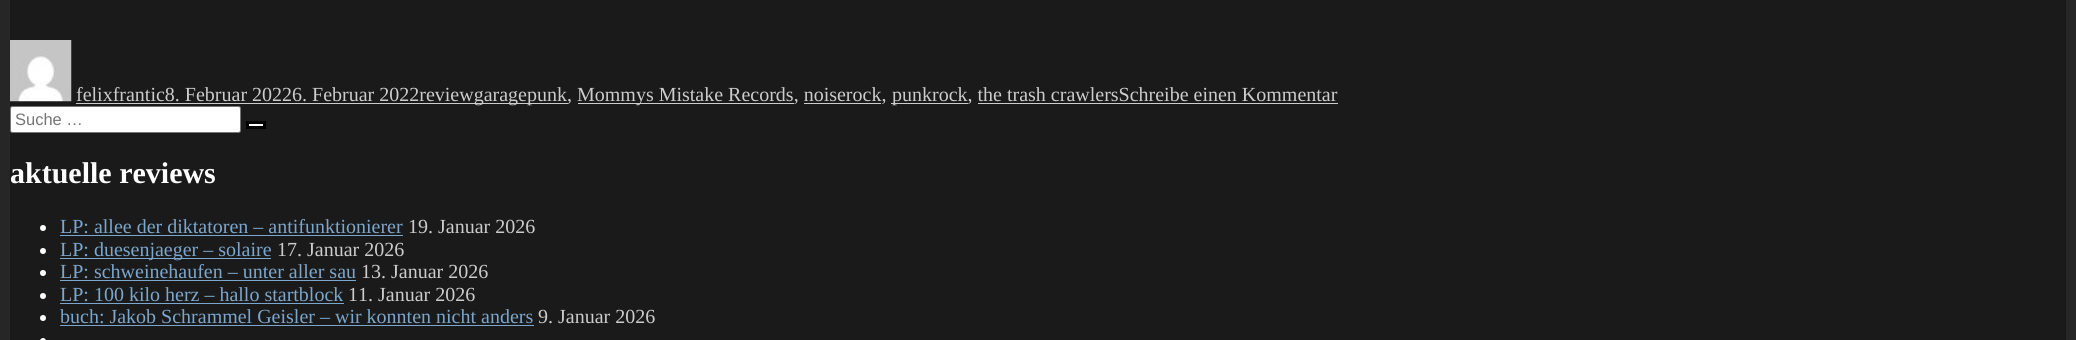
import math
import cairo


def use_color(cr, r, g, b):
  cr.set_source_rgb(r / 255, g / 255, b / 255)

def text(cr, x, y, s, family, size, color, bold=False, italic=False):
  cr.select_font_face(family, cairo.FONT_SLANT_ITALIC if italic else cairo.FONT_SLANT_NORMAL, cairo.FONT_WEIGHT_BOLD if bold else cairo.FONT_WEIGHT_NORMAL)
  cr.set_font_size(size)
  use_color(cr, *color)
  cr.move_to(x, y)
  cr.show_text(s)

def box(cr, x, y, w, h, *color):
  use_color(cr, *color)
  cr.rectangle(x, y, w, h)
  cr.fill()

def round_rect(cr, x, y, w, h, r):
  cr.new_sub_path()
  for i, (u, v) in enumerate([(x + w - r, y + h - r), (x + r, y + h - r), (x + r, y + r), (x + w - r, y + r)]):
    cr.arc(u, v, r, i * math.pi / 2, (i + 1) * math.pi / 2)
  cr.close_path()

def picture(cr, path, x, y, w, h):
  cr.save()
  cr.set_source_surface(cairo.ImageSurface.create_from_png(path), x, y)
  cr.rectangle(x, y, w, h)
  cr.fill()
  cr.restore()

def draw(cr):
  use_color(cr, 38, 38, 38)
  cr.paint()
  box(cr, 10, 0, 2056, 340, 26, 26, 26)
  picture(cr, "img_01.png", 10, 40, 62, 62)
  box(cr, 76, 103, 492, 1, 204, 204, 204)
  box(cr, 578, 103, 216, 1, 204, 204, 204)
  box(cr, 804, 103, 77, 1, 204, 204, 204)
  box(cr, 891, 103, 77, 1, 204, 204, 204)
  box(cr, 978, 103, 360, 1, 204, 204, 204)
  use_color(cr, 255, 255, 255)
  round_rect(cr, 10.5, 106.5, 230, 26, 2)
  cr.fill_preserve()
  use_color(cr, 118, 118, 118)
  cr.set_line_width(1)
  cr.stroke()
  use_color(cr, 255, 255, 255)
  cr.rectangle(247.5, 122.5, 17, 5)
  cr.fill_preserve()
  use_color(cr, 0, 0, 0)
  cr.set_line_width(3)
  cr.stroke()
  use_color(cr, 255, 255, 255)
  cr.arc(43, 228, 3, 0, 2 * math.pi)
  cr.fill()
  box(cr, 60, 235, 343, 1, 124, 166, 204)
  use_color(cr, 255, 255, 255)
  cr.arc(43, 251, 3, 0, 2 * math.pi)
  cr.fill()
  box(cr, 60, 258, 211, 1, 124, 166, 204)
  use_color(cr, 255, 255, 255)
  cr.arc(43, 273, 3, 0, 2 * math.pi)
  cr.fill()
  box(cr, 60, 280, 296, 1, 124, 166, 204)
  use_color(cr, 255, 255, 255)
  cr.arc(43, 296, 3, 0, 2 * math.pi)
  cr.fill()
  box(cr, 60, 303, 284, 1, 124, 166, 204)
  use_color(cr, 255, 255, 255)
  cr.arc(43, 318, 3, 0, 2 * math.pi)
  cr.fill()
  box(cr, 60, 325, 474, 1, 124, 166, 204)
  use_color(cr, 255, 255, 255)
  round_rect(cr, 40, 338, 6, 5, 3)
  cr.fill()
  text(cr, 76, 101, "felixfrantic8. Februar 20226. Februar 2022reviewgaragepunk,", "Liberation Serif", 20, (204, 204, 204))
  text(cr, 577, 101, "Mommys Mistake Records, noiserock,", "Liberation Serif", 20, (204, 204, 204))
  text(cr, 892, 101, "punkrock, the trash crawlersSchreibe einen Kommentar", "Liberation Serif", 20, (204, 204, 204))
  text(cr, 15, 125, "Suche …", "Liberation Sans", 16.5, (117, 117, 117))
  text(cr, 10, 183, "aktuelle reviews", "Liberation Serif", 30, (255, 255, 255), bold=True)
  text(cr, 60, 233, "LP: allee der diktatoren – antifunktionierer", "Liberation Serif", 20, (124, 166, 204))
  text(cr, 408, 233, "19. Januar 2026", "Liberation Serif", 20, (204, 204, 204))
  text(cr, 60, 256, "LP: duesenjaeger – solaire", "Liberation Serif", 20, (124, 166, 204))
  text(cr, 277, 256, "17. Januar 2026", "Liberation Serif", 20, (204, 204, 204))
  text(cr, 60, 278, "LP: schweinehaufen – unter aller sau", "Liberation Serif", 20, (124, 166, 204))
  text(cr, 361, 278, "13. Januar 2026", "Liberation Serif", 20, (204, 204, 204))
  text(cr, 60, 301, "LP: 100 kilo herz – hallo startblock", "Liberation Serif", 20, (124, 166, 204))
  text(cr, 348, 301, "11. Januar 2026", "Liberation Serif", 20, (204, 204, 204))
  text(cr, 60, 323, "buch: Jakob Schrammel Geisler – wir konnten nicht anders", "Liberation Serif", 20, (124, 166, 204))
  text(cr, 538, 323, "9. Januar 2026", "Liberation Serif", 20, (204, 204, 204))


surface = cairo.ImageSurface(cairo.FORMAT_RGB24, 2076, 340)
cr = cairo.Context(surface)
options = cairo.FontOptions()
options.set_hint_metrics(cairo.HINT_METRICS_OFF)
options.set_hint_style(cairo.HINT_STYLE_NONE)
cr.set_font_options(options)
cr.set_miter_limit(4)
draw(cr)
surface.write_to_png("out.png")
